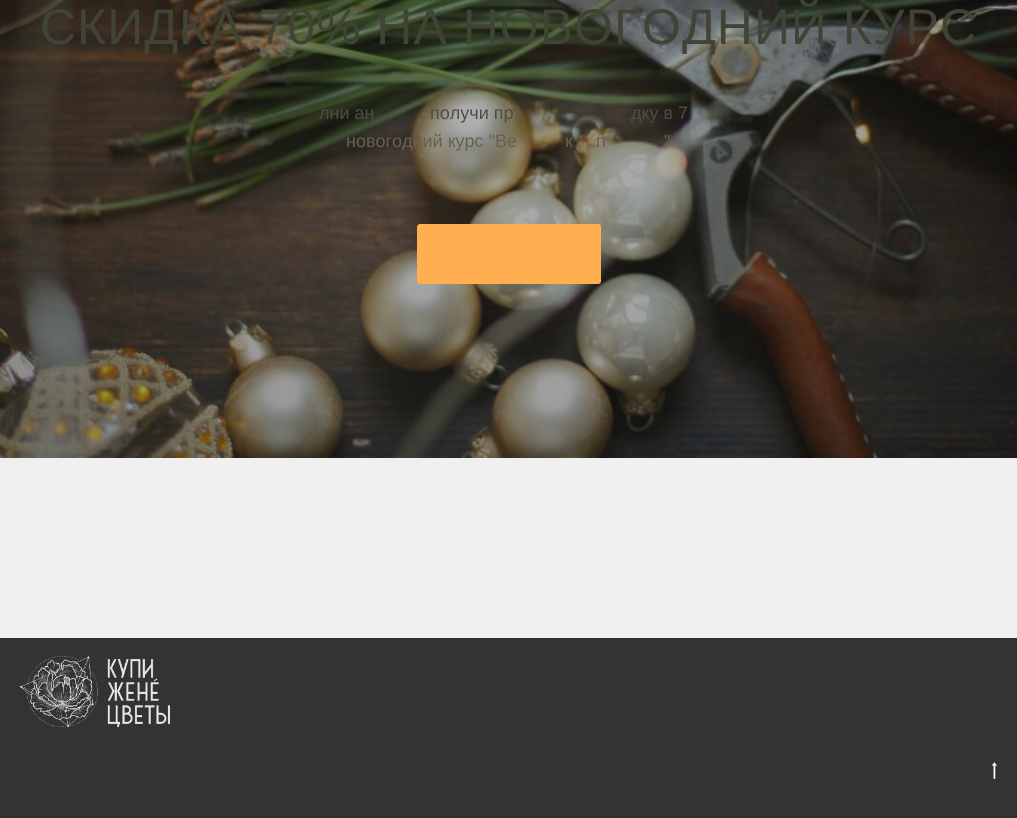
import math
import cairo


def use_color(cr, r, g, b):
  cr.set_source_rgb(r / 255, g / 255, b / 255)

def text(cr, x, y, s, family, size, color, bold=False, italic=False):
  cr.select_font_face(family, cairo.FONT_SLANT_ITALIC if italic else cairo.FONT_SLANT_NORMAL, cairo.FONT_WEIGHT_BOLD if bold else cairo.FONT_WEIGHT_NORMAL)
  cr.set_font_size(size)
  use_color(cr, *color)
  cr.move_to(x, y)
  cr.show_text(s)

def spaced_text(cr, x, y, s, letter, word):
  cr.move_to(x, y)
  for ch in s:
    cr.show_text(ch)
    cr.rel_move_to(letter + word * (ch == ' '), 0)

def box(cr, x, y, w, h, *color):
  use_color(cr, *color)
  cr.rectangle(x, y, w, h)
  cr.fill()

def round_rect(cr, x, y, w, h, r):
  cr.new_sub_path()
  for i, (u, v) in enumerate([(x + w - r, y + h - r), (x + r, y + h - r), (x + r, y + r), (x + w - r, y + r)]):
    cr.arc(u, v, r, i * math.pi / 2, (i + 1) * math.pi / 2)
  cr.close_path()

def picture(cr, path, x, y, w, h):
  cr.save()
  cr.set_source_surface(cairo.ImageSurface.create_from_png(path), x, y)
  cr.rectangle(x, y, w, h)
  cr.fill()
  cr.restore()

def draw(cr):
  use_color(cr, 240, 240, 240)
  cr.paint()
  picture(cr, "img_01.png", 0, 0, 1017, 458)
  use_color(cr, 255, 175, 80)
  round_rect(cr, 417, 224, 184, 60, 3)
  cr.fill()
  box(cr, 0, 638, 1017, 180, 51, 51, 51)
  picture(cr, "img_02.png", 20, 656, 150, 71)
  picture(cr, "img_03.png", 992, 762, 5, 17)
  cr.select_font_face("Liberation Sans")
  cr.set_font_size(50)
  use_color(cr, 64, 67, 53)
  spaced_text(cr, 40, 44, "СКИДКА 70% НА НОВОГОДНИЙ КУРС", 1, 0)
  text(cr, 319, 119, "лни ан", "Liberation Sans", 18, (78, 77, 64))
  text(cr, 430, 119, "получи пр", "Liberation Sans", 18, (78, 77, 64))
  text(cr, 631, 119, "дку в 7", "Liberation Sans", 18, (78, 77, 64))
  text(cr, 346, 147, "новогодний курс \"Ве", "Liberation Sans", 18, (103, 96, 79))
  text(cr, 664, 147, "\"", "Liberation Sans", 18, (103, 96, 79))
  text(cr, 565, 147, "к", "Liberation Sans", 18, (103, 96, 79))
  text(cr, 596, 147, "п", "Liberation Sans", 18, (103, 96, 79))


surface = cairo.ImageSurface(cairo.FORMAT_RGB24, 1017, 818)
cr = cairo.Context(surface)
options = cairo.FontOptions()
options.set_hint_metrics(cairo.HINT_METRICS_OFF)
options.set_hint_style(cairo.HINT_STYLE_NONE)
cr.set_font_options(options)
cr.set_miter_limit(4)
draw(cr)
surface.write_to_png("out.png")
